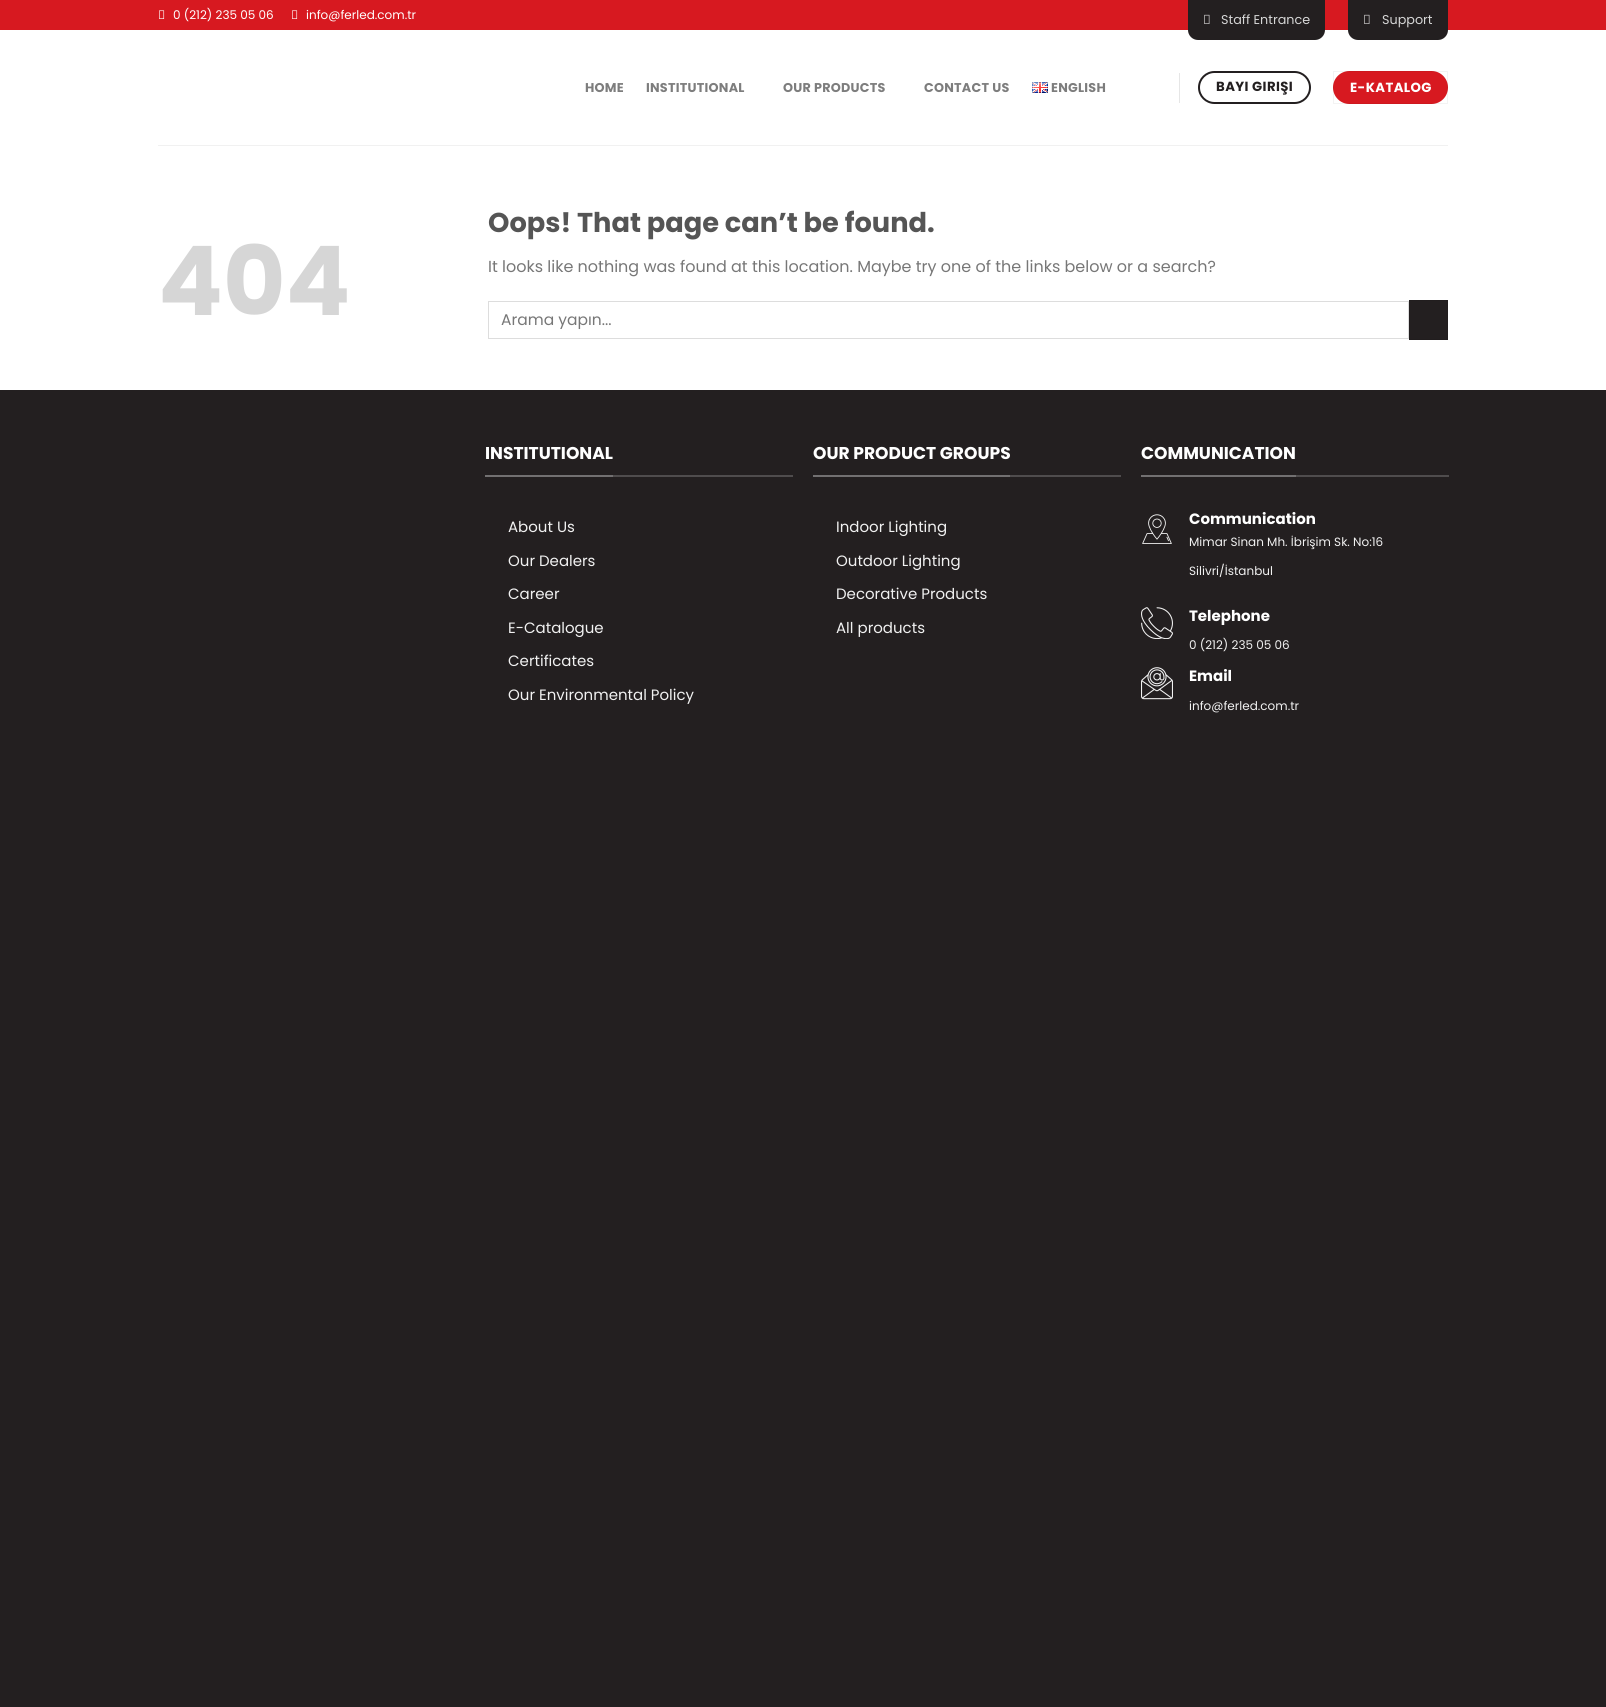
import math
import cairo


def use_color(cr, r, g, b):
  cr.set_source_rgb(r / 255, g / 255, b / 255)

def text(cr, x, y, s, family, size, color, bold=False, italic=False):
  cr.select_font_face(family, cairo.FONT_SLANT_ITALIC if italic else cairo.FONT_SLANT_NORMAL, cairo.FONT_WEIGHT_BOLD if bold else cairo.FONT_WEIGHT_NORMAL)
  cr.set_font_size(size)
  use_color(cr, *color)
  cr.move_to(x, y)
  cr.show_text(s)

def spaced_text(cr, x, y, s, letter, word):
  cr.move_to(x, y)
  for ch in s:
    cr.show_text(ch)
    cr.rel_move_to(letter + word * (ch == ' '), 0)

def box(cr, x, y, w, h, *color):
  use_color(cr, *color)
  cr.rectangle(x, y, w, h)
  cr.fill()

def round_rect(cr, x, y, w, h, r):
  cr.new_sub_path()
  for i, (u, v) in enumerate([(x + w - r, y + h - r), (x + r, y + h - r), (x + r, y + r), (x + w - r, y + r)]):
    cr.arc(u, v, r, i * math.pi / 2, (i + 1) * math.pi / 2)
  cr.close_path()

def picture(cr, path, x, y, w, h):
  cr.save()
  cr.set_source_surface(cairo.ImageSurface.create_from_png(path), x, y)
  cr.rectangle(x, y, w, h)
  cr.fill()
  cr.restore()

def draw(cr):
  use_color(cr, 255, 255, 255)
  cr.paint()
  box(cr, 0, 0, 1606, 30, 215, 25, 32)
  picture(cr, "img_01.png", 159, 10, 6, 9)
  picture(cr, "img_01.png", 292, 10, 6, 9)
  use_color(cr, 35, 31, 32)
  cr.new_path()
  cr.move_to(1188, 0)
  cr.line_to(1325, 0)
  cr.line_to(1325, 30)
  cr.curve_to(1325, 35.5, 1320.5, 40, 1315, 40)
  cr.line_to(1198, 40)
  cr.curve_to(1192.5, 40, 1188, 35.5, 1188, 30)
  cr.close_path()
  cr.fill()
  picture(cr, "img_02.png", 1204, 14, 6, 10)
  cr.new_path()
  cr.move_to(1348, 0)
  cr.line_to(1448, 0)
  cr.line_to(1448, 30)
  cr.curve_to(1448, 35.5, 1443.5, 40, 1438, 40)
  cr.line_to(1358, 40)
  cr.curve_to(1352.5, 40, 1348, 35.5, 1348, 30)
  cr.close_path()
  cr.fill()
  picture(cr, "img_02.png", 1364, 14, 6, 10)
  picture(cr, "img_03.png", 1032, 82, 16, 11)
  box(cr, 1179, 73, 1, 30, 230, 230, 230)
  round_rect(cr, 1199, 72, 111, 31, 15.5)
  use_color(cr, 35, 31, 32)
  cr.stroke()
  use_color(cr, 215, 25, 32)
  round_rect(cr, 1333, 71, 115, 33, 16.5)
  cr.fill()
  cr.rectangle(1333.5, 71.5, 114, 32)
  cr.set_source_rgba(0, 0, 0, 0.05)
  cr.set_line_width(1)
  cr.stroke()
  box(cr, 158, 145, 1290, 1, 241, 241, 241)
  cr.rectangle(488.5, 301.5, 920, 37)
  use_color(cr, 221, 221, 221)
  cr.stroke()
  use_color(cr, 35, 31, 32)
  cr.rectangle(1409.5, 300.5, 38, 39)
  cr.fill_preserve()
  use_color(cr, 33, 29, 30)
  cr.stroke()
  box(cr, 0, 390, 1606, 1317, 35, 31, 32)
  box(cr, 613, 475, 180, 2, 79, 76, 77)
  box(cr, 485, 475, 128, 2, 114, 112, 113)
  box(cr, 1010, 475, 111, 2, 79, 76, 77)
  box(cr, 813, 475, 197, 2, 114, 112, 113)
  box(cr, 1296, 475, 153, 2, 79, 76, 77)
  box(cr, 1141, 475, 155, 2, 114, 112, 113)
  picture(cr, "img_04.png", 1142, 514, 30, 30)
  picture(cr, "img_05.png", 1141, 607, 32, 32)
  picture(cr, "img_06.png", 1141, 667, 32, 33)
  text(cr, 173, 19, "0 (212) 235 05 06", "Poppins", 12, (255, 255, 255))
  text(cr, 306, 19, "info@ferled.com.tr", "Poppins", 12, (255, 255, 255))
  text(cr, 1221, 24, "Staff Entrance", "Poppins", 12.75, (214, 214, 214))
  text(cr, 1382, 24, "Support", "Poppins", 12.75, (214, 214, 214))
  cr.select_font_face("Poppins", cairo.FONT_SLANT_NORMAL, cairo.FONT_WEIGHT_BOLD)
  use_color(cr, 125, 125, 125)
  spaced_text(cr, 585, 92, "HOME", 0.25, 0)
  spaced_text(cr, 646, 92, "INSTITUTIONAL", 0.25, 0)
  spaced_text(cr, 783, 92, "OUR PRODUCTS", 0.25, 0)
  spaced_text(cr, 924, 92, "CONTACT US", 0.25, 0)
  spaced_text(cr, 1051, 92, "ENGLISH", 0.25, 0)
  cr.set_font_size(13.25)
  use_color(cr, 35, 31, 32)
  spaced_text(cr, 1216, 91, "BAYI GIRIŞI", 0.4, 0)
  use_color(cr, 255, 255, 255)
  spaced_text(cr, 1350, 92, "E-KATALOG", 0.4, 0)
  text(cr, 158, 315, "404", "Poppins", 96, (214, 214, 214), bold=True)
  text(cr, 488, 232, "Oops! That page can’t be found.", "Poppins", 27.25, (85, 85, 85), bold=True)
  text(cr, 488, 272, "It looks like nothing was found at this location. Maybe try one of the links below or a search?", "Poppins", 16, (119, 119, 119))
  text(cr, 501, 325, "Arama yapın...", "Poppins", 15.5, (119, 119, 119))
  text(cr, 485, 459, "INSTITUTIONAL", "Poppins", 17.1, (255, 255, 255), bold=True)
  text(cr, 508, 532, "About Us", "Poppins", 15, (241, 241, 241))
  text(cr, 508, 566, "Our Dealers", "Poppins", 15, (241, 241, 241))
  text(cr, 508, 599, "Career", "Poppins", 15, (241, 241, 241))
  text(cr, 508, 633, "E-Catalogue", "Poppins", 15, (241, 241, 241))
  text(cr, 508, 666, "Certificates", "Poppins", 15, (241, 241, 241))
  text(cr, 508, 700, "Our Environmental Policy", "Poppins", 15, (241, 241, 241))
  text(cr, 813, 459, "OUR PRODUCT GROUPS", "Poppins", 17.1, (255, 255, 255), bold=True)
  text(cr, 836, 532, "Indoor Lighting", "Poppins", 15, (241, 241, 241))
  text(cr, 836, 566, "Outdoor Lighting", "Poppins", 15, (241, 241, 241))
  text(cr, 836, 599, "Decorative Products", "Poppins", 15, (241, 241, 241))
  text(cr, 836, 633, "All products", "Poppins", 15, (241, 241, 241))
  text(cr, 1141, 459, "COMMUNICATION", "Poppins", 17.1, (255, 255, 255), bold=True)
  text(cr, 1189, 524, "Communication", "Poppins", 15, (255, 255, 255), bold=True)
  text(cr, 1189, 546, "Mimar Sinan Mh. İbrişim Sk. No:16", "Poppins", 12, (241, 241, 241))
  text(cr, 1189, 575, "Silivri/İstanbul", "Poppins", 12, (241, 241, 241))
  text(cr, 1189, 621, "Telephone", "Poppins", 15, (255, 255, 255), bold=True)
  text(cr, 1189, 649, "0 (212) 235 05 06", "Poppins", 12, (241, 241, 241))
  text(cr, 1189, 681, "Email", "Poppins", 15, (255, 255, 255), bold=True)
  text(cr, 1189, 710, "info@ferled.com.tr", "Poppins", 12, (241, 241, 241))


surface = cairo.ImageSurface(cairo.FORMAT_RGB24, 1606, 1707)
cr = cairo.Context(surface)
options = cairo.FontOptions()
options.set_hint_metrics(cairo.HINT_METRICS_OFF)
options.set_hint_style(cairo.HINT_STYLE_NONE)
cr.set_font_options(options)
cr.set_miter_limit(4)
draw(cr)
surface.write_to_png("out.png")
